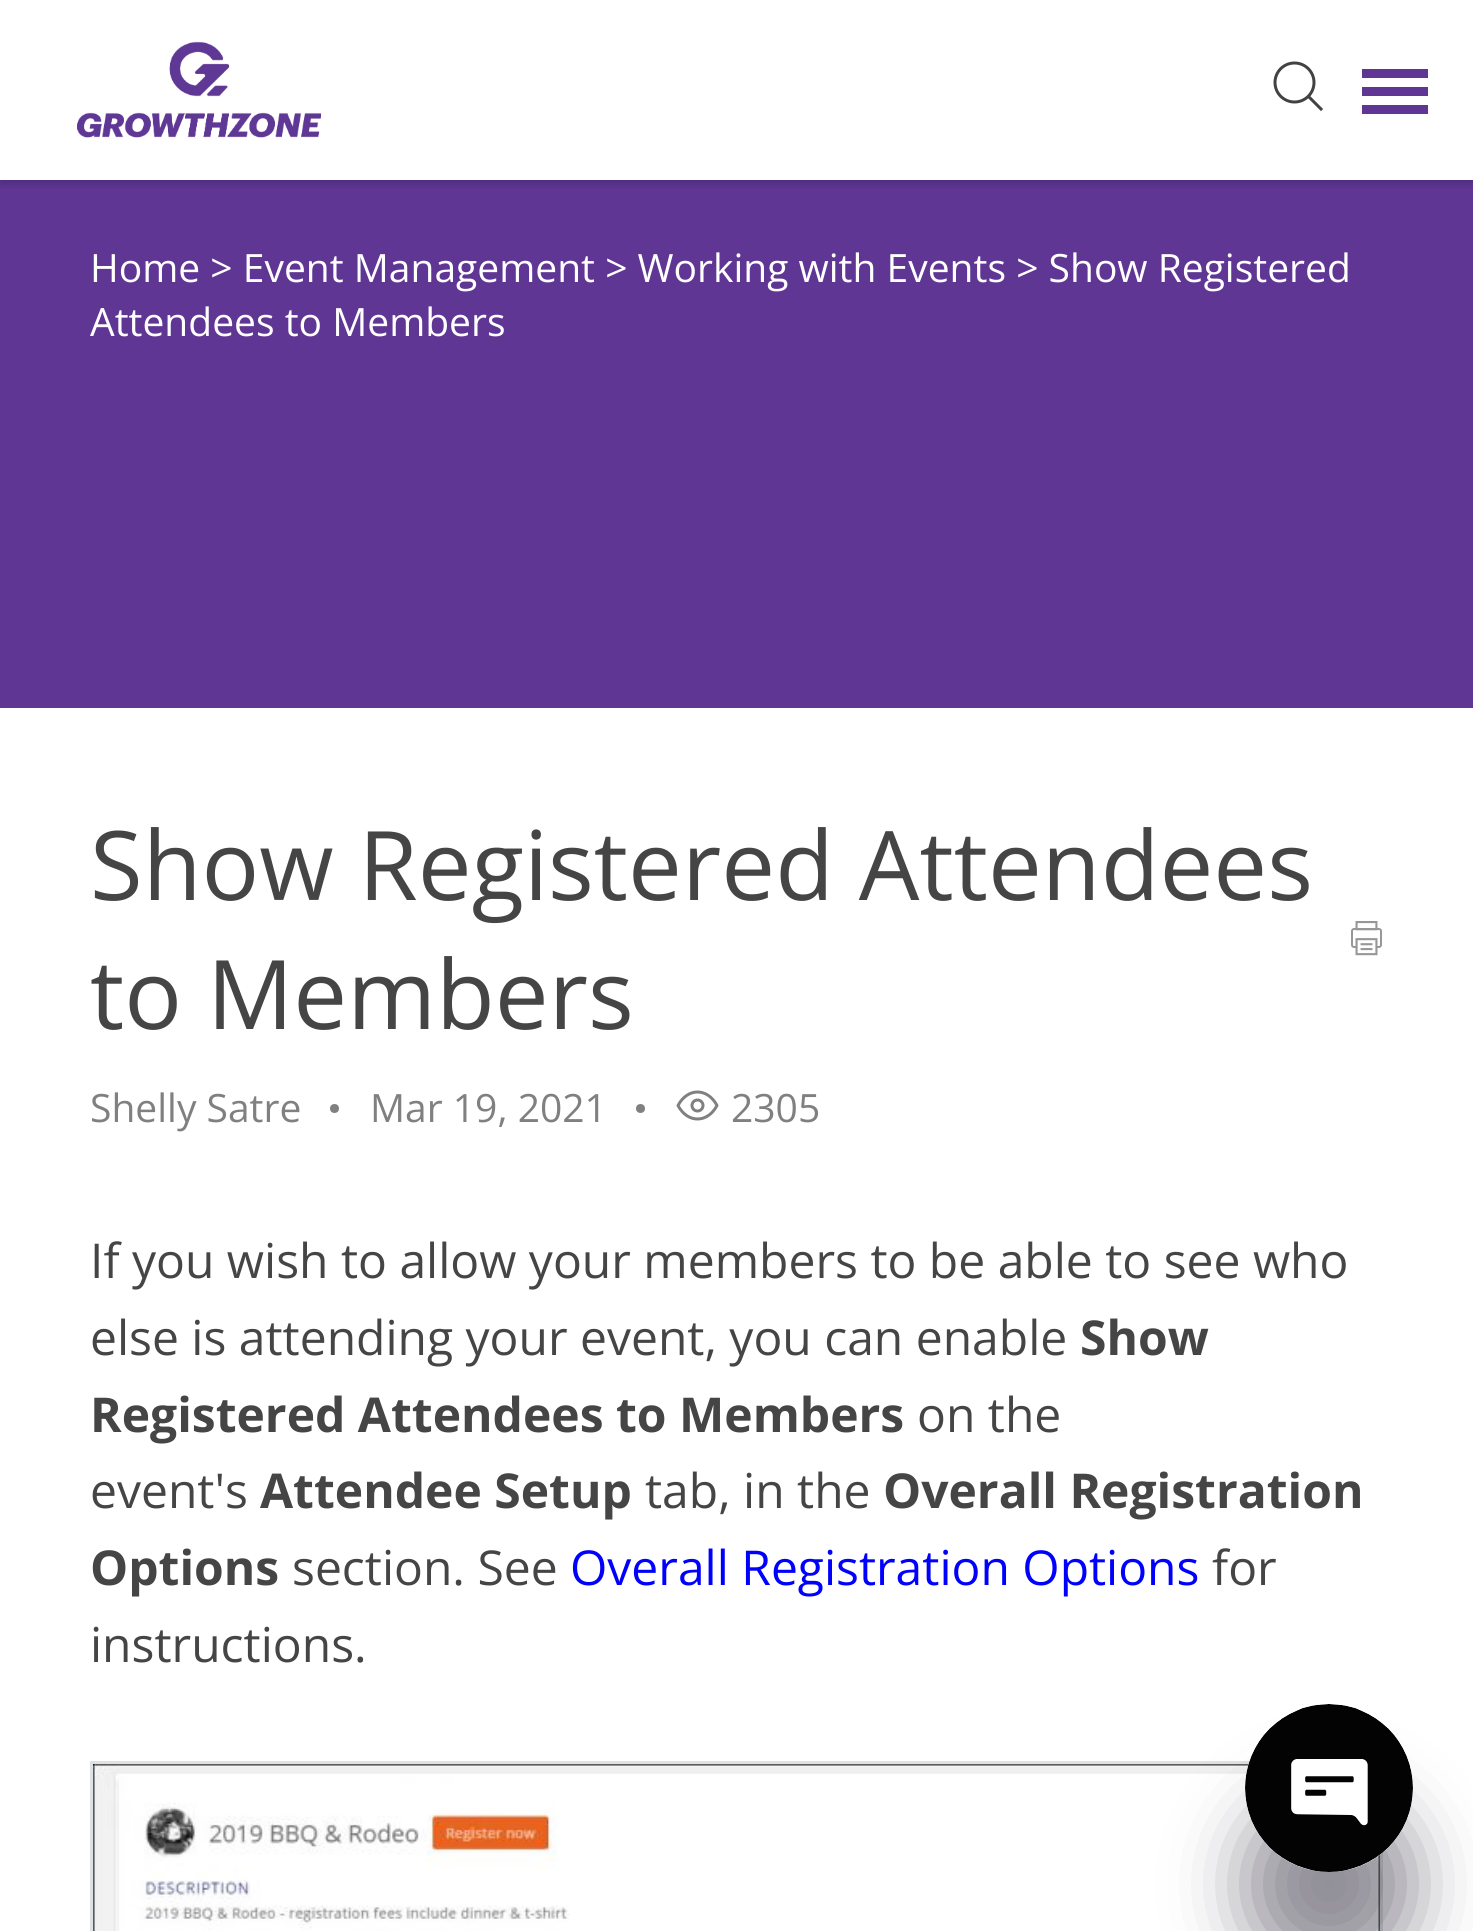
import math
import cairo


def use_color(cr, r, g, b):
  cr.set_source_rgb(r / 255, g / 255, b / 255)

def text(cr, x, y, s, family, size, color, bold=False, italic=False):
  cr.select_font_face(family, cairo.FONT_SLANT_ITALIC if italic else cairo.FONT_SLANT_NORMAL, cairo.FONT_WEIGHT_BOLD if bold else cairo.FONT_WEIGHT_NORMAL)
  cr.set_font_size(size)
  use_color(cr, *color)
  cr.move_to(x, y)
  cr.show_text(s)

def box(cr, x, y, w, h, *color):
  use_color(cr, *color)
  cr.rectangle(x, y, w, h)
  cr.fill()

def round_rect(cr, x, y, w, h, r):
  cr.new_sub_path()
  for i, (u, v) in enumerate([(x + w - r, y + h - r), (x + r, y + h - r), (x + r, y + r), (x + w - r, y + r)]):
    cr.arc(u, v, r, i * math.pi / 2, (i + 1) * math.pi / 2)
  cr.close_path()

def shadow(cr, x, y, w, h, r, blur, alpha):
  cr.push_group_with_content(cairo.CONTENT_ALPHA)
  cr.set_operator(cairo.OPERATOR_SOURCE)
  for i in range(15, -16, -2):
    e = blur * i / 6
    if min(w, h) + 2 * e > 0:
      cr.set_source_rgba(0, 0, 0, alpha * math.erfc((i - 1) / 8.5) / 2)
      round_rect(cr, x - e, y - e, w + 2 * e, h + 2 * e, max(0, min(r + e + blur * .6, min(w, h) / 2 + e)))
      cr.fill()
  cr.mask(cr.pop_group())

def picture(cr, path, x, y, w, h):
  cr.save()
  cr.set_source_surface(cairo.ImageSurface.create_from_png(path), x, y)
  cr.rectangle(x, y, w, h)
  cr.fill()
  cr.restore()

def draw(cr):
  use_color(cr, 255, 255, 255)
  cr.paint()
  box(cr, 0, 180, 1473, 528, 95, 54, 148)
  cr.save()
  cr.rectangle(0, 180, 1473, 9)
  cr.clip()
  use_color(cr, 0, 0, 0)
  shadow(cr, 0, 3, 1473, 180, 0, 4.5, 0.2)
  cr.restore()
  picture(cr, "img_01.png", 77, 41, 244, 97)
  cr.arc(1294.5, 82.5, 19.5, 0, 2 * math.pi)
  use_color(cr, 66, 66, 66)
  cr.set_line_width(3)
  cr.stroke()
  cr.new_path()
  cr.move_to(1310, 98)
  cr.line_to(1321, 109)
  cr.set_line_cap(cairo.LINE_CAP_SQUARE)
  cr.stroke()
  box(cr, 1362, 69, 66, 9, 95, 54, 148)
  box(cr, 1362, 87, 66, 9, 95, 54, 148)
  box(cr, 1362, 105, 66, 9, 95, 54, 148)
  picture(cr, "img_02.png", 1351, 921, 31, 35)
  use_color(cr, 128, 128, 128)
  cr.arc(334.5, 1108.5, 4.5, 0, 2 * math.pi)
  cr.fill()
  cr.arc(640.5, 1108.5, 4.5, 0, 2 * math.pi)
  cr.fill()
  cr.new_path()
  cr.move_to(678, 1105.5)
  cr.curve_to(687.5, 1087.5, 707.5, 1087.5, 717, 1105.5)
  cr.curve_to(707.5, 1123.5, 687.5, 1123.5, 678, 1105.5)
  cr.close_path()
  cr.set_line_cap(cairo.LINE_CAP_ROUND)
  cr.set_line_join(cairo.LINE_JOIN_ROUND)
  cr.stroke()
  cr.arc(697.5, 1105.5, 5.5, 0, 2 * math.pi)
  cr.set_line_cap(cairo.LINE_CAP_BUTT)
  cr.set_line_join(cairo.LINE_JOIN_MITER)
  cr.stroke()
  cr.rectangle(91.5, 1762.5, 1290, 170)
  use_color(cr, 222, 226, 228)
  cr.stroke()
  picture(cr, "img_03.png", 93, 1764, 1287, 167)
  use_color(cr, 35, 30, 48)
  shadow(cr, 1245, 1800, 168, 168, 84, 36, 0.5)
  use_color(cr, 255, 255, 255)
  cr.arc(1329, 1788, 84, 0, 2 * math.pi)
  cr.fill()
  picture(cr, "img_04.png", 1245, 1704, 168, 168)
  text(cr, 90, 282, "Home > Event Management > Working with Events > Show Registered", "Open Sans", 39, (255, 255, 255))
  text(cr, 90, 336, "Attendees to Members", "Open Sans", 39, (255, 255, 255))
  text(cr, 90, 900, "Show Registered Attendees", "Open Sans", 96, (69, 69, 69))
  text(cr, 90, 1029, "to Members", "Open Sans", 96, (69, 69, 69))
  text(cr, 90, 1122, "Shelly Satre", "Open Sans", 39, (128, 128, 128))
  text(cr, 370, 1122, "Mar 19, 2021", "Open Sans", 39, (128, 128, 128))
  text(cr, 731, 1122, "2305", "Open Sans", 39, (128, 128, 128))
  text(cr, 90, 1278, "If you wish to allow your members to be able to see who", "Open Sans", 48, (69, 69, 69))
  text(cr, 90, 1355, "else is attending your event, you can enable", "Open Sans", 48, (69, 69, 69))
  text(cr, 1080, 1355, "Show", "Open Sans", 48, (69, 69, 69), bold=True)
  text(cr, 90, 1432, "Registered Attendees to Members", "Open Sans", 48, (69, 69, 69), bold=True)
  text(cr, 917, 1432, "on the", "Open Sans", 48, (69, 69, 69))
  text(cr, 90, 1508, "event's", "Open Sans", 48, (69, 69, 69))
  text(cr, 260, 1508, "Attendee Setup", "Open Sans", 48, (69, 69, 69), bold=True)
  text(cr, 645, 1508, "tab, in the", "Open Sans", 48, (69, 69, 69))
  text(cr, 883, 1508, "Overall Registration", "Open Sans", 48, (69, 69, 69), bold=True)
  text(cr, 90, 1585, "Options", "Open Sans", 48, (69, 69, 69), bold=True)
  text(cr, 292, 1585, "section. See", "Open Sans", 48, (69, 69, 69))
  text(cr, 570, 1585, "Overall Registration Options", "Open Sans", 48, (0, 0, 255))
  text(cr, 1212, 1585, "for", "Open Sans", 48, (69, 69, 69))
  text(cr, 90, 1662, "instructions.", "Open Sans", 48, (69, 69, 69))


surface = cairo.ImageSurface(cairo.FORMAT_RGB24, 1473, 1931)
cr = cairo.Context(surface)
options = cairo.FontOptions()
options.set_hint_metrics(cairo.HINT_METRICS_OFF)
options.set_hint_style(cairo.HINT_STYLE_NONE)
cr.set_font_options(options)
cr.set_miter_limit(4)
draw(cr)
surface.write_to_png("out.png")
